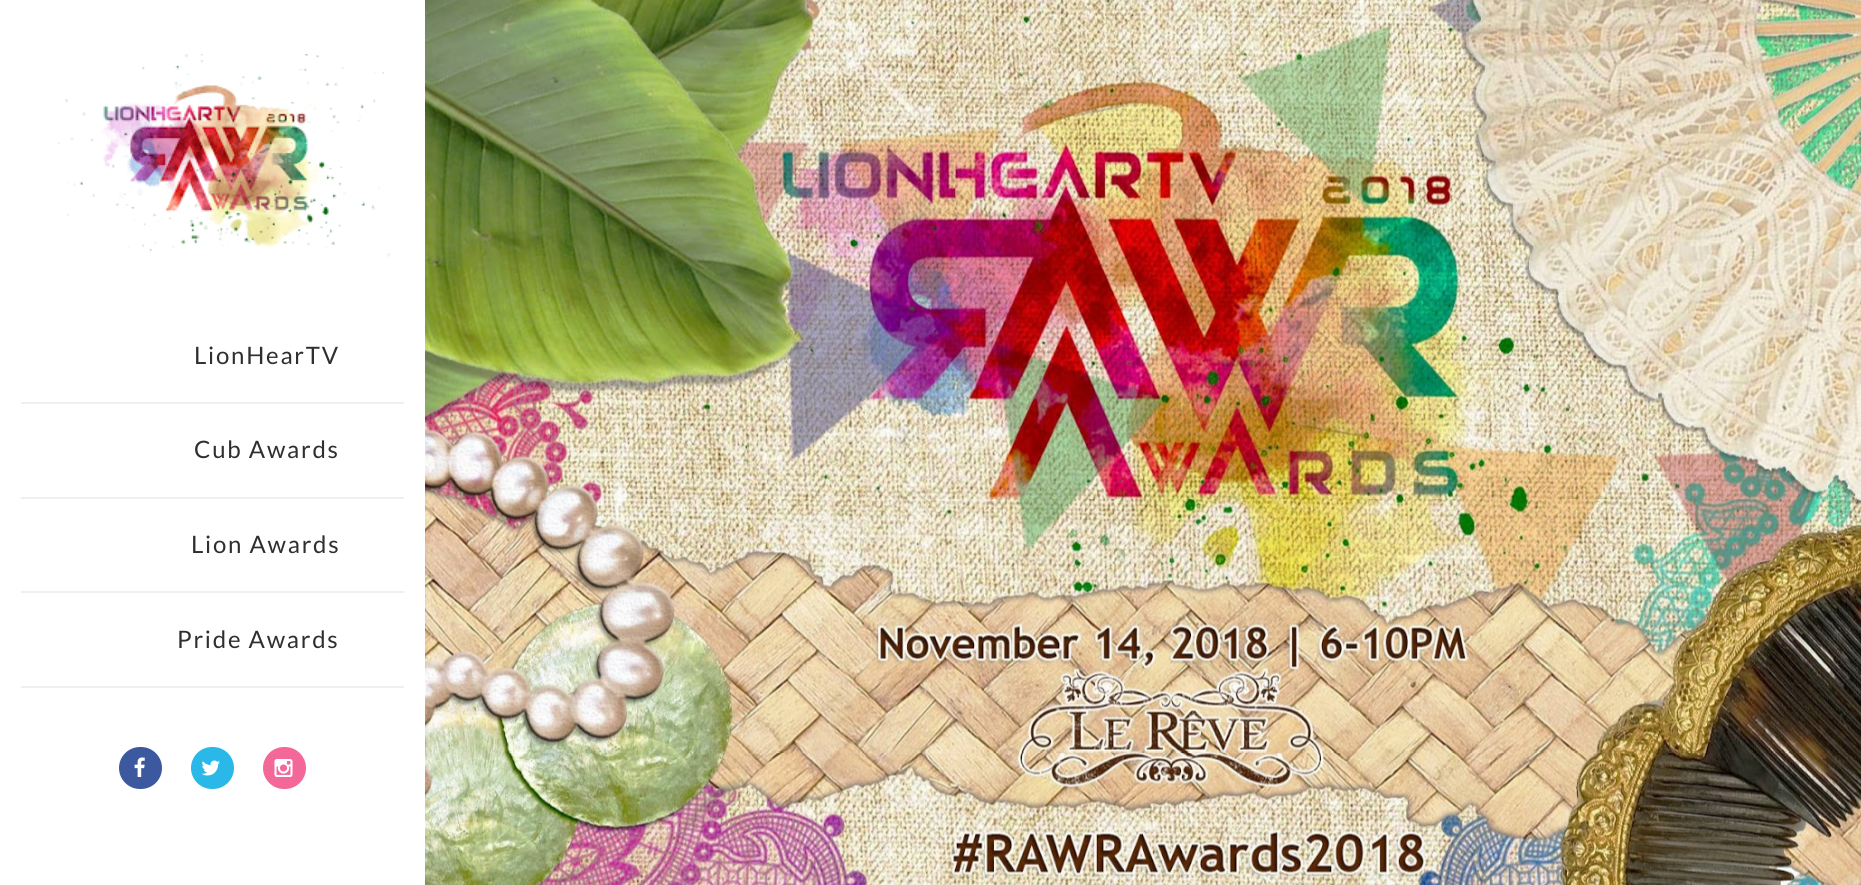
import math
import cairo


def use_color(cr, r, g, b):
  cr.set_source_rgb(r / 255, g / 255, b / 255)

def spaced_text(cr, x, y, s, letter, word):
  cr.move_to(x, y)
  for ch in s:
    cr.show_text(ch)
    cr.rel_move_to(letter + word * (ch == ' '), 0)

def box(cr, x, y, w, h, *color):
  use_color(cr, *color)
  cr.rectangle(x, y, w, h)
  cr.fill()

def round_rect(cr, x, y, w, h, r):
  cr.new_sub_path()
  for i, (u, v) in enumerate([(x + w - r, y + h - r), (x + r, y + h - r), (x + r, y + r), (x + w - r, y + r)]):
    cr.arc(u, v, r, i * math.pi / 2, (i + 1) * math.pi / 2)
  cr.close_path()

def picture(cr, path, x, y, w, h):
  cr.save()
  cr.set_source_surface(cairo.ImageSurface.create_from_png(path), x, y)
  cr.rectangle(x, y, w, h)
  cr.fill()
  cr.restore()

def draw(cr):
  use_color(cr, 255, 255, 255)
  cr.paint()
  picture(cr, "img_01.png", 57, 54, 334, 203)
  box(cr, 21, 402, 383, 2, 239, 239, 239)
  box(cr, 21, 497, 383, 2, 239, 239, 239)
  box(cr, 21, 591, 383, 2, 239, 239, 239)
  box(cr, 21, 686, 383, 2, 239, 239, 239)
  use_color(cr, 60, 89, 159)
  round_rect(cr, 119, 747, 43, 42, 21)
  cr.fill()
  picture(cr, "img_02.png", 134, 757, 11, 20)
  use_color(cr, 41, 184, 231)
  round_rect(cr, 191, 747, 43, 42, 21)
  cr.fill()
  picture(cr, "img_03.png", 201, 760, 19, 16)
  use_color(cr, 244, 104, 153)
  round_rect(cr, 263, 747, 43, 42, 21)
  cr.fill()
  picture(cr, "img_04.png", 274, 759, 19, 18)
  picture(cr, "img_05.png", 425, 0, 1436, 885)
  cr.select_font_face("Lato")
  cr.set_font_size(24)
  use_color(cr, 47, 47, 47)
  spaced_text(cr, 194, 364, "LionHearTV", 1.75, 0)
  spaced_text(cr, 194, 458, "Cub Awards", 1.75, 0)
  spaced_text(cr, 191, 553, "Lion Awards", 1.75, 0)
  spaced_text(cr, 177, 648, "Pride Awards", 1.75, 0)


surface = cairo.ImageSurface(cairo.FORMAT_RGB24, 1861, 885)
cr = cairo.Context(surface)
options = cairo.FontOptions()
options.set_hint_metrics(cairo.HINT_METRICS_OFF)
options.set_hint_style(cairo.HINT_STYLE_NONE)
cr.set_font_options(options)
cr.set_miter_limit(4)
draw(cr)
surface.write_to_png("out.png")
